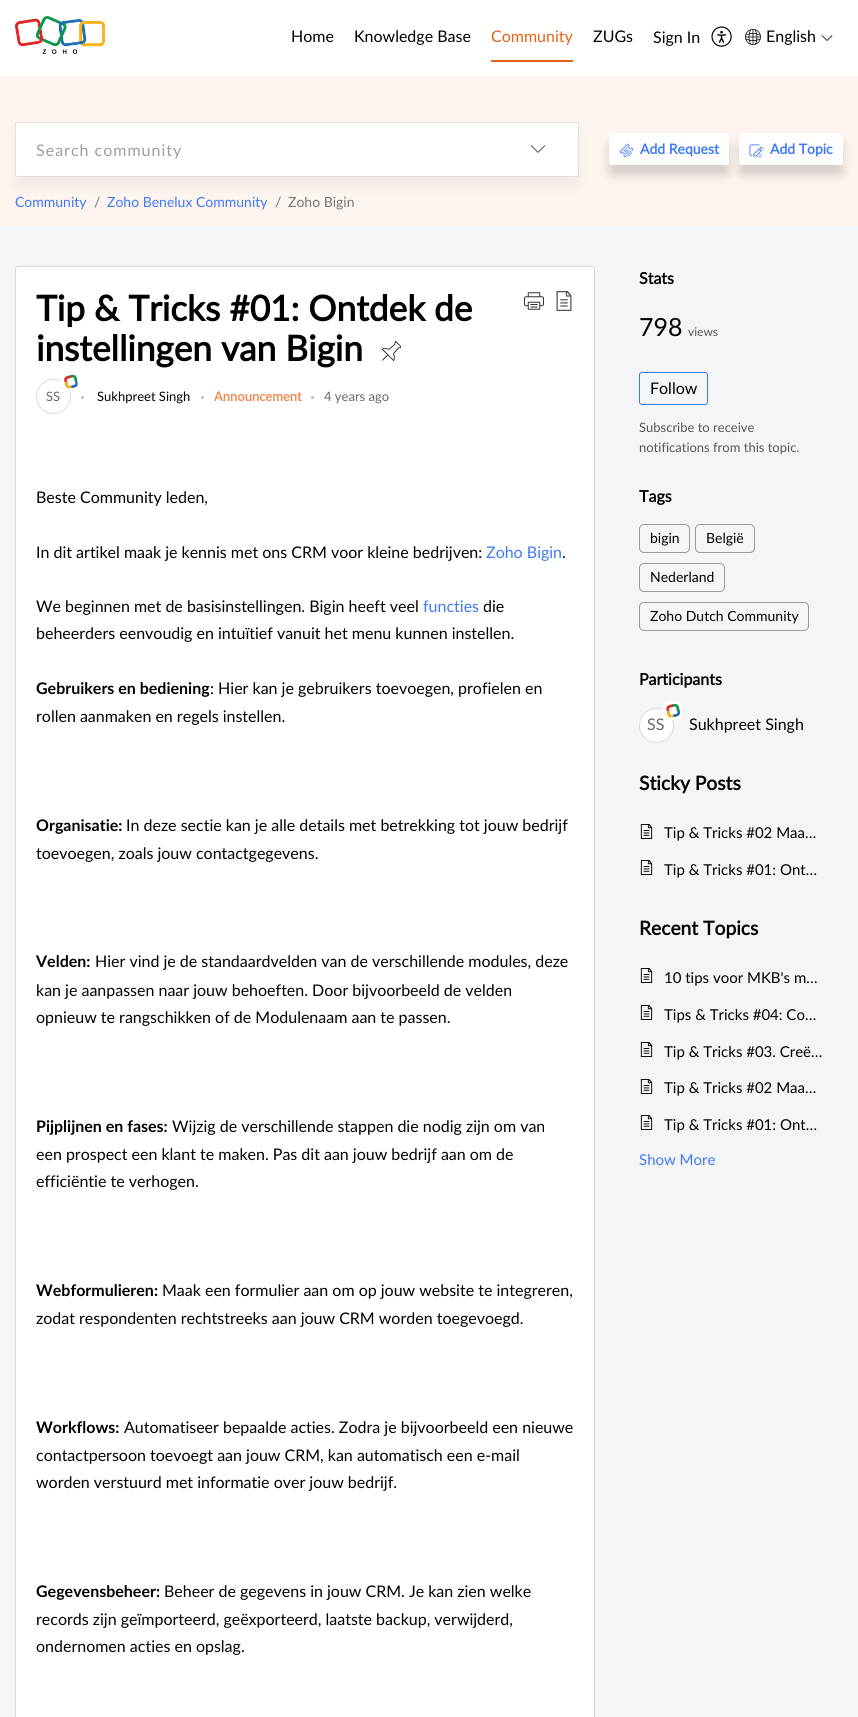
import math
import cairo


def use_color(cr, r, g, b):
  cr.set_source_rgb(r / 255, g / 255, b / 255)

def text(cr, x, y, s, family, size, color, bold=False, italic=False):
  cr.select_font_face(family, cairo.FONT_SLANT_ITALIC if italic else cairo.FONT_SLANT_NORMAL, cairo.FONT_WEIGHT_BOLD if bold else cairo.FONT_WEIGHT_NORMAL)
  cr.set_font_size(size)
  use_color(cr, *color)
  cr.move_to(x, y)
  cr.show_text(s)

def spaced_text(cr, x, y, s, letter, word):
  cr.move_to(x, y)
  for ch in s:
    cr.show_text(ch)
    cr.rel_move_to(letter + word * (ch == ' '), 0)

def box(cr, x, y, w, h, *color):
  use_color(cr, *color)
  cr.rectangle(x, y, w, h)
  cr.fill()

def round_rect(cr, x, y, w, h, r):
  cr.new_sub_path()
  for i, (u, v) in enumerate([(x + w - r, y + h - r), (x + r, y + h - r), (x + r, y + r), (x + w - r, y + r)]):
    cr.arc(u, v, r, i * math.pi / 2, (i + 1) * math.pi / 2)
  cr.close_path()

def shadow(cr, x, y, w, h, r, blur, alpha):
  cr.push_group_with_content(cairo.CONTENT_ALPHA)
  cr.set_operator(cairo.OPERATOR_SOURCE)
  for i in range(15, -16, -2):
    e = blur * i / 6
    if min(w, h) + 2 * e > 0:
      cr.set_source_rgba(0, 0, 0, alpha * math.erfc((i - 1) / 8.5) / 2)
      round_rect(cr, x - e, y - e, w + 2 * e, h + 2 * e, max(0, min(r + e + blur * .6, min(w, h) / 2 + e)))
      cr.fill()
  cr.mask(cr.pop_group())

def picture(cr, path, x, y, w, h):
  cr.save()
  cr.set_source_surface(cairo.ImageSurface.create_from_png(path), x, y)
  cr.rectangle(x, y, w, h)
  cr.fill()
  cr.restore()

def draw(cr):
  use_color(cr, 243, 245, 247)
  cr.paint()
  box(cr, 0, 0, 858, 76, 255, 255, 255)
  picture(cr, "img_01.png", 15, 16, 90, 38)
  box(cr, 491, 60, 82, 2, 228, 99, 23)
  picture(cr, "img_02.png", 711, 26, 21, 21)
  picture(cr, "img_03.png", 745, 29, 16, 16)
  picture(cr, "img_04.png", 821, 35, 12, 6)
  box(cr, 0, 76, 858, 150, 253, 244, 239)
  use_color(cr, 240, 232, 229)
  shadow(cr, 15, 132, 564, 55, 0, 5, 0.84)
  cr.rectangle(15.5, 122.5, 563, 54)
  use_color(cr, 234, 223, 219)
  cr.set_line_width(1)
  cr.stroke()
  use_color(cr, 255, 255, 255)
  round_rect(cr, 16, 123, 562, 53, 3)
  cr.fill()
  round_rect(cr, 16, 123, 482, 53, 3)
  cr.fill()
  cr.set_source_rgba(1, 1, 1, 0.5)
  cr.new_path()
  cr.move_to(498, 123)
  cr.line_to(575, 123)
  cr.curve_to(576.5, 123, 578, 124.5, 578, 126)
  cr.line_to(578, 173)
  cr.curve_to(578, 174.5, 576.5, 176, 575, 176)
  cr.line_to(498, 176)
  cr.close_path()
  cr.fill()
  picture(cr, "img_05.png", 530, 145, 16, 8)
  use_color(cr, 0, 0, 0)
  shadow(cr, 609, 143, 120, 32, 3, 5, 0.16)
  use_color(cr, 255, 255, 255)
  round_rect(cr, 609, 133, 120, 32, 3)
  cr.fill()
  picture(cr, "img_06.png", 619, 143, 15, 15)
  use_color(cr, 0, 0, 0)
  shadow(cr, 739, 143, 104, 32, 3, 5, 0.16)
  use_color(cr, 255, 255, 255)
  round_rect(cr, 739, 133, 104, 32, 3)
  cr.fill()
  picture(cr, "img_07.png", 749, 144, 15, 13)
  cr.new_path()
  cr.move_to(18, 266)
  cr.line_to(592, 266)
  cr.curve_to(593.5, 266, 595, 267.5, 595, 269)
  cr.line_to(595, 1717)
  cr.line_to(15, 1717)
  cr.line_to(15, 269)
  cr.curve_to(15, 267.5, 16.5, 266, 18, 266)
  cr.close_path()
  cr.fill()
  round_rect(cr, 15.5, 266.5, 579, 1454, 2.5)
  use_color(cr, 212, 218, 223)
  cr.stroke()
  picture(cr, "img_08.png", 382, 341, 19, 20)
  picture(cr, "img_09.png", 524, 292, 20, 18)
  picture(cr, "img_10.png", 556, 291, 16, 20)
  cr.arc(53.5, 396.5, 17, 0, 2 * math.pi)
  use_color(cr, 218, 218, 218)
  cr.stroke()
  use_color(cr, 255, 255, 255)
  cr.new_path()
  cr.move_to(66, 373)
  cr.line_to(71, 372)
  cr.curve_to(74.5, 371, 78.5, 373.5, 79, 377.5)
  cr.line_to(80, 382)
  cr.curve_to(81, 386, 78.5, 389.5, 74.5, 390.5)
  cr.line_to(70, 391.5)
  cr.curve_to(66, 392.5, 62.5, 390, 61.5, 386)
  cr.line_to(60.5, 381)
  cr.curve_to(59.5, 377.5, 62, 373.5, 66, 373)
  cr.close_path()
  cr.fill()
  picture(cr, "img_11.png", 64, 374, 14, 15)
  use_color(cr, 189, 189, 189)
  cr.arc(82.5, 397.5, 1.5, 0, 2 * math.pi)
  cr.fill()
  cr.arc(202.5, 397.5, 1.5, 0, 2 * math.pi)
  cr.fill()
  cr.arc(312.5, 397.5, 1.5, 0, 2 * math.pi)
  cr.fill()
  round_rect(cr, 639.5, 372.5, 68, 32, 2.5)
  use_color(cr, 62, 122, 247)
  cr.stroke()
  round_rect(cr, 639.5, 524.5, 50, 28, 4.5)
  use_color(cr, 155, 155, 156)
  cr.stroke()
  round_rect(cr, 695.5, 524.5, 59, 28, 4.5)
  cr.stroke()
  round_rect(cr, 639.5, 563.5, 85, 28, 4.5)
  cr.stroke()
  round_rect(cr, 639.5, 602.5, 169, 28, 4.5)
  cr.stroke()
  use_color(cr, 255, 255, 255)
  cr.arc(656.5, 725.5, 17, 0, 2 * math.pi)
  cr.fill_preserve()
  use_color(cr, 218, 218, 218)
  cr.stroke()
  picture(cr, "img_13.png", 640, 824, 13, 15)
  picture(cr, "img_13.png", 640, 860, 13, 15)
  picture(cr, "img_13.png", 640, 968, 13, 15)
  picture(cr, "img_13.png", 640, 1005, 13, 15)
  picture(cr, "img_13.png", 640, 1042, 13, 15)
  picture(cr, "img_13.png", 640, 1079, 13, 15)
  picture(cr, "img_13.png", 640, 1115, 13, 15)
  text(cr, 291, 42, "Home", "Lato", 16, (0, 0, 0))
  text(cr, 354, 42, "Knowledge Base", "Lato", 16, (0, 0, 0))
  text(cr, 491, 42, "Community", "Lato", 16, (228, 99, 23))
  text(cr, 593, 42, "ZUGs", "Lato", 16, (0, 0, 0))
  text(cr, 653, 43, "Sign In", "Lato", 16, (0, 0, 0))
  text(cr, 766, 42, "English", "Lato", 16, (0, 0, 0))
  use_color(cr, 158, 158, 158)
  spaced_text(cr, 36, 156, "Search community", 1, 0)
  text(cr, 640, 154, "Add Request", "Lato", 14, (62, 122, 247), bold=True)
  text(cr, 770, 154, "Add Topic", "Lato", 14, (62, 122, 247), bold=True)
  text(cr, 15, 207, "Community", "Lato", 14, (62, 122, 247))
  text(cr, 94, 207, "/", "Lato", 14, (119, 119, 119))
  text(cr, 107, 207, "Zoho Benelux Community", "Lato", 14, (62, 122, 247))
  text(cr, 275, 207, "/", "Lato", 14, (119, 119, 119))
  text(cr, 288, 207, "Zoho Bigin", "Lato", 14, (119, 119, 119))
  text(cr, 36, 321, "Tip & Tricks #01: Ontdek de", "Lato", 35.25, (0, 0, 0), bold=True)
  text(cr, 36, 361, "instellingen van Bigin", "Lato", 35.25, (0, 0, 0), bold=True)
  text(cr, 46, 401, "SS", "Lato", 13, (102, 102, 102))
  text(cr, 97, 401, "Sukhpreet Singh", "Lato", 13, (0, 0, 0))
  text(cr, 214, 401, "Announcement", "Lato", 13, (239, 139, 80), bold=True)
  text(cr, 324, 401, "4 years ago", "Lato", 13, (102, 102, 102))
  text(cr, 36, 503, "Beste Community leden,", "Lato", 16, (0, 0, 0))
  text(cr, 36, 558, "In dit artikel maak je kennis met ons CRM voor kleine bedrijven:", "Lato", 16, (0, 0, 0))
  text(cr, 486, 558, "Zoho Bigin", "Lato", 16, (62, 122, 247))
  text(cr, 562, 558, ".", "Lato", 16, (0, 0, 0))
  text(cr, 36, 612, "We beginnen met de basisinstellingen. Bigin heeft veel", "Lato", 16, (0, 0, 0))
  text(cr, 423, 612, "functies", "Lato", 16, (62, 122, 247))
  text(cr, 483, 612, "die", "Lato", 16, (0, 0, 0))
  text(cr, 36, 639, "beheerders eenvoudig en intuïtief vanuit het menu kunnen instellen.", "Lato", 16, (0, 0, 0))
  text(cr, 36, 694, "Gebruikers en bediening", "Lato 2", 16, (0, 0, 0), bold=True)
  text(cr, 210, 694, ": Hier kan je gebruikers toevoegen, profielen en", "Lato", 16, (0, 0, 0))
  text(cr, 36, 722, "rollen aanmaken en regels instellen.", "Lato", 16, (0, 0, 0))
  text(cr, 36, 831, "Organisatie:", "Lato 2", 16, (0, 0, 0), bold=True)
  text(cr, 126, 831, "In deze sectie kan je alle details met betrekking tot jouw bedrijf", "Lato", 16, (0, 0, 0))
  text(cr, 36, 859, "toevoegen, zoals jouw contactgegevens.", "Lato", 16, (0, 0, 0))
  text(cr, 36, 967, "Velden:", "Lato 2", 16, (0, 0, 0), bold=True)
  text(cr, 95, 967, "Hier vind je de standaardvelden van de verschillende modules, deze", "Lato", 16, (0, 0, 0))
  text(cr, 36, 996, "kan je aanpassen naar jouw behoeften. Door bijvoorbeeld de velden", "Lato", 16, (0, 0, 0))
  text(cr, 36, 1023, "opnieuw te rangschikken of de Modulenaam aan te passen.", "Lato", 16, (0, 0, 0))
  text(cr, 36, 1132, "Pijplijnen en fases:", "Lato 2", 16, (0, 0, 0), bold=True)
  text(cr, 172, 1132, "Wijzig de verschillende stappen die nodig zijn om van", "Lato", 16, (0, 0, 0))
  text(cr, 36, 1160, "een prospect een klant te maken. Pas dit aan jouw bedrijf aan om de", "Lato", 16, (0, 0, 0))
  text(cr, 36, 1187, "efficiëntie te verhogen.", "Lato", 16, (0, 0, 0))
  text(cr, 36, 1296, "Webformulieren:", "Lato 2", 16, (0, 0, 0), bold=True)
  text(cr, 162, 1296, "Maak een formulier aan om op jouw website te integreren,", "Lato", 16, (0, 0, 0))
  text(cr, 36, 1324, "zodat respondenten rechtstreeks aan jouw CRM worden toegevoegd.", "Lato", 16, (0, 0, 0))
  text(cr, 36, 1433, "Workflows:", "Lato 2", 16, (0, 0, 0), bold=True)
  text(cr, 124, 1433, "Automatiseer bepaalde acties. Zodra je bijvoorbeeld een nieuwe", "Lato", 16, (0, 0, 0))
  text(cr, 36, 1461, "contactpersoon toevoegt aan jouw CRM, kan automatisch een e-mail", "Lato", 16, (0, 0, 0))
  text(cr, 36, 1488, "worden verstuurd met informatie over jouw bedrijf.", "Lato", 16, (0, 0, 0))
  text(cr, 36, 1597, "Gegevensbeheer:", "Lato 2", 16, (0, 0, 0), bold=True)
  text(cr, 164, 1597, "Beheer de gegevens in jouw CRM. Je kan zien welke", "Lato", 16, (0, 0, 0))
  text(cr, 36, 1625, "records zijn geïmporteerd, geëxporteerd, laatste backup, verwijderd,", "Lato", 16, (0, 0, 0))
  text(cr, 36, 1652, "ondernomen acties en opslag.", "Lato", 16, (0, 0, 0))
  text(cr, 639, 284, "Stats", "Lato", 16, (0, 0, 0), bold=True)
  text(cr, 639, 336, "798", "Lato", 25, (0, 0, 0))
  text(cr, 688, 336, "views", "Lato", 12, (85, 85, 85))
  text(cr, 650, 394, "Follow", "Lato", 16, (0, 0, 0))
  text(cr, 639, 432, "Subscribe to receive", "Lato", 13, (85, 85, 85))
  text(cr, 639, 452, "notifications from this topic.", "Lato", 13, (85, 85, 85))
  text(cr, 639, 502, "Tags", "Lato", 16, (0, 0, 0), bold=True)
  text(cr, 650, 543, "bigin", "Lato", 14, (0, 0, 0))
  text(cr, 706, 543, "België", "Lato", 14, (0, 0, 0))
  text(cr, 650, 582, "Nederland", "Lato", 14, (0, 0, 0))
  text(cr, 650, 621, "Zoho Dutch Community", "Lato", 14, (0, 0, 0))
  text(cr, 639, 685, "Participants", "Lato", 16, (0, 0, 0), bold=True)
  text(cr, 647, 730, "SS", "Lato", 16, (102, 102, 102))
  use_color(cr, 255, 255, 255)
  cr.new_path()
  cr.move_to(668.5, 701.5)
  cr.line_to(673.5, 700.5)
  cr.curve_to(677, 700, 681, 702, 681.5, 706)
  cr.line_to(682.5, 711)
  cr.curve_to(683.5, 714.5, 681, 718.5, 677.5, 719)
  cr.line_to(672.5, 720)
  cr.curve_to(668.5, 721, 665, 718.5, 664, 715)
  cr.line_to(663, 710)
  cr.curve_to(662.5, 706, 664.5, 702.5, 668.5, 701.5)
  cr.close_path()
  cr.fill()
  picture(cr, "img_12.png", 666, 703, 14, 15)
  text(cr, 689, 730, "Sukhpreet Singh", "Lato", 16, (0, 0, 0))
  text(cr, 639, 790, "Sticky Posts", "Lato", 19.25, (0, 0, 0), bold=True)
  text(cr, 664, 838, "Tip & Tricks #02 Maa…", "Lato", 15, (0, 0, 0))
  text(cr, 664, 875, "Tip & Tricks #01: Ont…", "Lato", 15, (0, 0, 0))
  text(cr, 639, 935, "Recent Topics", "Lato", 19.25, (0, 0, 0), bold=True)
  text(cr, 664, 983, "10 tips voor MKB's m…", "Lato", 15, (0, 0, 0))
  text(cr, 664, 1020, "Tips & Tricks #04: Co…", "Lato", 15, (0, 0, 0))
  text(cr, 664, 1057, "Tip & Tricks #03. Creë…", "Lato", 15, (0, 0, 0))
  text(cr, 664, 1093, "Tip & Tricks #02 Maa…", "Lato", 15, (0, 0, 0))
  text(cr, 664, 1130, "Tip & Tricks #01: Ont…", "Lato", 15, (0, 0, 0))
  text(cr, 639, 1165, "Show More", "Lato", 15, (62, 122, 247))


surface = cairo.ImageSurface(cairo.FORMAT_RGB24, 858, 1717)
cr = cairo.Context(surface)
options = cairo.FontOptions()
options.set_hint_metrics(cairo.HINT_METRICS_OFF)
options.set_hint_style(cairo.HINT_STYLE_NONE)
cr.set_font_options(options)
cr.set_miter_limit(4)
draw(cr)
surface.write_to_png("out.png")
